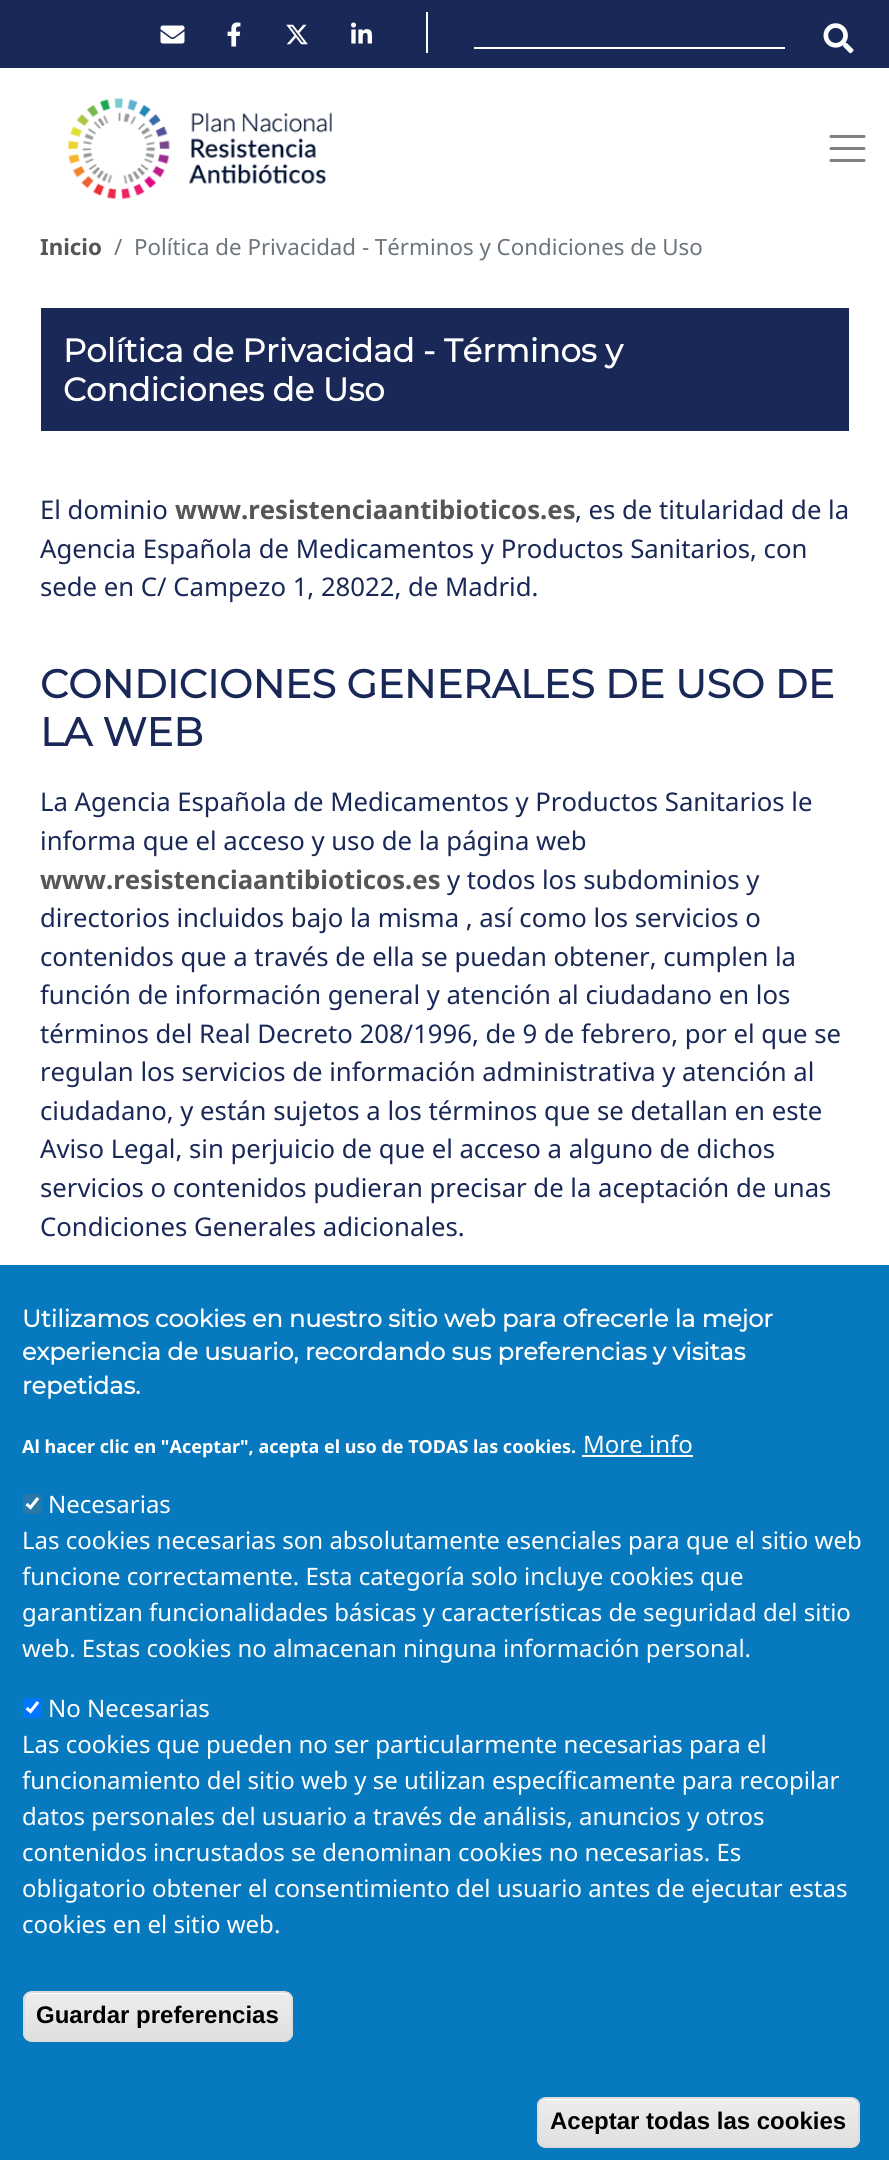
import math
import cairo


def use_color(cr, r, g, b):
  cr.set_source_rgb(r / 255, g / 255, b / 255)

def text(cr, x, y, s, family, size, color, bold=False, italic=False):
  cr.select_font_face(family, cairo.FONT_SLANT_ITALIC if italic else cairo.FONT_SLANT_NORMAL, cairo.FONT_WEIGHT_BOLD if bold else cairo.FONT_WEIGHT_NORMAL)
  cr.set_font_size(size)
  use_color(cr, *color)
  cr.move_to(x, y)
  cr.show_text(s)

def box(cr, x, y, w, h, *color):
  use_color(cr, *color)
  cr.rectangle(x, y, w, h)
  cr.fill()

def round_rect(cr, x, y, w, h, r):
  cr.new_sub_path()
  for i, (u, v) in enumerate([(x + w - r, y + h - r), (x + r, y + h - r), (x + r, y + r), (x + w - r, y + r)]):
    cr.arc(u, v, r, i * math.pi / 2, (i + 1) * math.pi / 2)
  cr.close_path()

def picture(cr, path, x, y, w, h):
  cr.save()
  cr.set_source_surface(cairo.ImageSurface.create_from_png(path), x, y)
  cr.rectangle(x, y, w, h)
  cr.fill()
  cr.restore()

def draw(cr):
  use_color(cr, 255, 255, 255)
  cr.paint()
  box(cr, 0, 0, 889, 68, 25, 40, 87)
  box(cr, 426, 12, 2, 41, 255, 255, 255)
  picture(cr, "img_01.png", 160, 25, 25, 19)
  picture(cr, "img_02.png", 227, 22, 14, 25)
  picture(cr, "img_03.png", 286, 24, 22, 21)
  picture(cr, "img_04.png", 351, 22, 21, 22)
  box(cr, 474, 47, 311, 2, 255, 255, 255)
  picture(cr, "img_05.png", 823, 23, 31, 31)
  picture(cr, "img_06.png", 68, 98, 264, 101)
  cr.new_path()
  cr.move_to(831, 136.5)
  cr.line_to(864, 136.5)
  cr.move_to(831, 148.5)
  cr.line_to(864, 148.5)
  cr.move_to(831, 160.5)
  cr.line_to(864, 160.5)
  use_color(cr, 128, 128, 128)
  cr.set_line_width(3)
  cr.set_line_cap(cairo.LINE_CAP_ROUND)
  cr.stroke()
  box(cr, 41, 308, 808, 123, 25, 40, 87)
  box(cr, 0, 1265, 889, 895, 7, 121, 191)
  box(cr, 582, 1455, 111, 2, 255, 255, 255)
  use_color(cr, 40, 120, 169)
  round_rect(cr, 23, 1494, 19, 20, 3)
  cr.fill()
  cr.new_path()
  cr.move_to(26.5, 1504)
  cr.line_to(30.5, 1507.5)
  cr.line_to(38, 1498)
  use_color(cr, 255, 255, 255)
  cr.set_line_width(3.1)
  cr.set_line_cap(cairo.LINE_CAP_BUTT)
  cr.stroke()
  use_color(cr, 0, 117, 255)
  round_rect(cr, 23, 1698, 19, 20, 3)
  cr.fill()
  cr.new_path()
  cr.move_to(26.5, 1708)
  cr.line_to(30.5, 1711.5)
  cr.line_to(38, 1702)
  use_color(cr, 255, 255, 255)
  cr.stroke()
  cr.save()
  round_rect(cr, 23, 1991, 270, 51, 9)
  cr.clip()
  gradient = cairo.LinearGradient(158, 1992, 158, 2040)
  gradient.add_color_stop_rgba(0.05, 0.929, 0.929, 0.929, 1)
  gradient.add_color_stop_rgba(1, 0.875, 0.875, 0.875, 1)
  cr.set_source(gradient)
  cr.rectangle(23, 1992, 270, 48)
  cr.fill()
  cr.restore()
  cr.new_path()
  cr.move_to(32, 1994)
  cr.line_to(284, 1994)
  cr.curve_to(288, 1994, 291, 1997, 291, 2001)
  cr.curve_to(291, 1997, 289, 1993, 285, 1992)
  cr.line_to(30, 1992)
  cr.curve_to(26, 1993, 24, 1997, 24, 2001)
  cr.curve_to(24, 1997, 27, 1994, 32, 1994)
  cr.close_path()
  cr.fill()
  round_rect(cr, 24, 1992, 268, 49, 8)
  use_color(cr, 220, 220, 220)
  cr.set_line_width(2)
  cr.stroke()
  cr.save()
  round_rect(cr, 537, 2097, 323, 51, 9)
  cr.clip()
  gradient = cairo.LinearGradient(698, 2099, 698, 2147)
  gradient.add_color_stop_rgba(0.05, 0.929, 0.929, 0.929, 1)
  gradient.add_color_stop_rgba(1, 0.875, 0.875, 0.875, 1)
  cr.set_source(gradient)
  cr.rectangle(537, 2099, 323, 48)
  cr.fill()
  cr.restore()
  use_color(cr, 255, 255, 255)
  cr.new_path()
  cr.move_to(546, 2100)
  cr.line_to(850, 2100)
  cr.curve_to(855, 2100, 858, 2103, 858, 2108)
  cr.line_to(858, 2107)
  cr.curve_to(858, 2103, 854, 2099, 850, 2099)
  cr.line_to(547, 2099)
  cr.curve_to(545, 2099, 542, 2100, 541, 2102)
  cr.curve_to(542, 2101, 544, 2100, 546, 2100)
  cr.close_path()
  cr.fill()
  round_rect(cr, 538, 2098, 321, 49, 8)
  use_color(cr, 220, 220, 220)
  cr.stroke()
  text(cr, 40, 255, "Inicio", "Noto Sans", 22.3, (86, 86, 86), bold=True)
  text(cr, 114, 255, "/", "Noto Sans", 22.3, (108, 117, 125))
  text(cr, 134, 255, "Política de Privacidad - Términos y Condiciones de Uso", "Noto Sans", 22.3, (108, 117, 125))
  text(cr, 63, 362, "Política de Privacidad - Términos y", "Montserrat", 32.5, (255, 255, 255), bold=True)
  text(cr, 63, 401, "Condiciones de Uso", "Montserrat", 32.5, (255, 255, 255), bold=True)
  text(cr, 40, 519, "El dominio", "Noto Sans", 25.7, (25, 40, 87))
  text(cr, 175, 519, "www.resistenciaantibioticos.es", "Noto Sans", 25.7, (86, 86, 86), bold=True)
  text(cr, 575, 519, ", es de titularidad de la", "Noto Sans", 25.7, (25, 40, 87))
  text(cr, 40, 558, "Agencia Española de Medicamentos y Productos Sanitarios, con", "Noto Sans", 25.7, (25, 40, 87))
  text(cr, 40, 596, "sede en C/ Campezo 1, 28022, de Madrid.", "Noto Sans", 25.7, (25, 40, 87))
  text(cr, 40, 698, "CONDICIONES GENERALES DE USO DE", "Montserrat", 39.8, (25, 40, 87), bold=True)
  text(cr, 40, 746, "LA WEB", "Montserrat", 39.8, (25, 40, 87), bold=True)
  text(cr, 40, 811, "La Agencia Española de Medicamentos y Productos Sanitarios le", "Noto Sans", 25.7, (25, 40, 87))
  text(cr, 40, 850, "informa que el acceso y uso de la página web", "Noto Sans", 25.7, (25, 40, 87))
  text(cr, 40, 889, "www.resistenciaantibioticos.es", "Noto Sans", 25.7, (86, 86, 86), bold=True)
  text(cr, 447, 889, "y todos los subdominios y", "Noto Sans", 25.7, (25, 40, 87))
  text(cr, 40, 927, "directorios incluidos bajo la misma , así como los servicios o", "Noto Sans", 25.7, (25, 40, 87))
  text(cr, 40, 966, "contenidos que a través de ella se puedan obtener, cumplen la", "Noto Sans", 25.7, (25, 40, 87))
  text(cr, 40, 1004, "función de información general y atención al ciudadano en los", "Noto Sans", 25.7, (25, 40, 87))
  text(cr, 40, 1043, "términos del Real Decreto 208/1996, de 9 de febrero, por el que se", "Noto Sans", 25.7, (25, 40, 87))
  text(cr, 40, 1081, "regulan los servicios de información administrativa y atención al", "Noto Sans", 25.7, (25, 40, 87))
  text(cr, 40, 1120, "ciudadano, y están sujetos a los términos que se detallan en este", "Noto Sans", 25.7, (25, 40, 87))
  text(cr, 40, 1158, "Aviso Legal, sin perjuicio de que el acceso a alguno de dichos", "Noto Sans", 25.7, (25, 40, 87))
  text(cr, 40, 1197, "servicios o contenidos pudieran precisar de la aceptación de unas", "Noto Sans", 25.7, (25, 40, 87))
  text(cr, 40, 1236, "Condiciones Generales adicionales.", "Noto Sans", 25.7, (25, 40, 87))
  text(cr, 22, 1327, "Utilizamos cookies en nuestro sitio web para ofrecerle la mejor", "Montserrat", 24, (255, 255, 255), bold=True)
  text(cr, 22, 1360, "experiencia de usuario, recordando sus preferencias y visitas", "Montserrat", 24, (255, 255, 255), bold=True)
  text(cr, 22, 1394, "repetidas.", "Montserrat", 24, (255, 255, 255), bold=True)
  text(cr, 22, 1453, "Al hacer clic en \"Aceptar\", acepta el uso de TODAS las cookies.", "Noto Sans", 18, (255, 255, 255), bold=True)
  text(cr, 583, 1453, "More info", "Noto Sans", 24, (255, 255, 255))
  text(cr, 48, 1513, "Necesarias", "Noto Sans", 24, (255, 255, 255))
  text(cr, 22, 1549, "Las cookies necesarias son absolutamente esenciales para que el sitio web", "Noto Sans", 24, (255, 255, 255))
  text(cr, 22, 1585, "funcione correctamente. Esta categoría solo incluye cookies que", "Noto Sans", 24, (255, 255, 255))
  text(cr, 22, 1621, "garantizan funcionalidades básicas y características de seguridad del sitio", "Noto Sans", 24, (255, 255, 255))
  text(cr, 22, 1657, "web. Estas cookies no almacenan ninguna información personal.", "Noto Sans", 24, (255, 255, 255))
  text(cr, 48, 1717, "No Necesarias", "Noto Sans", 24, (255, 255, 255))
  text(cr, 22, 1753, "Las cookies que pueden no ser particularmente necesarias para el", "Noto Sans", 24, (255, 255, 255))
  text(cr, 22, 1789, "funcionamiento del sitio web y se utilizan específicamente para recopilar", "Noto Sans", 24, (255, 255, 255))
  text(cr, 22, 1825, "datos personales del usuario a través de análisis, anuncios y otros", "Noto Sans", 24, (255, 255, 255))
  text(cr, 22, 1861, "contenidos incrustados se denominan cookies no necesarias. Es", "Noto Sans", 24, (255, 255, 255))
  text(cr, 22, 1897, "obligatorio obtener el consentimiento del usuario antes de ejecutar estas", "Noto Sans", 24, (255, 255, 255))
  text(cr, 22, 1933, "cookies en el sitio web.", "Noto Sans", 24, (255, 255, 255))
  text(cr, 36, 2023, "Guardar preferencias", "Liberation Sans", 24, (0, 0, 0), bold=True)
  text(cr, 550, 2129, "Aceptar todas las cookies", "Liberation Sans", 24, (0, 0, 0), bold=True)


surface = cairo.ImageSurface(cairo.FORMAT_RGB24, 889, 2160)
cr = cairo.Context(surface)
options = cairo.FontOptions()
options.set_hint_metrics(cairo.HINT_METRICS_OFF)
options.set_hint_style(cairo.HINT_STYLE_NONE)
cr.set_font_options(options)
cr.set_miter_limit(4)
draw(cr)
surface.write_to_png("out.png")
